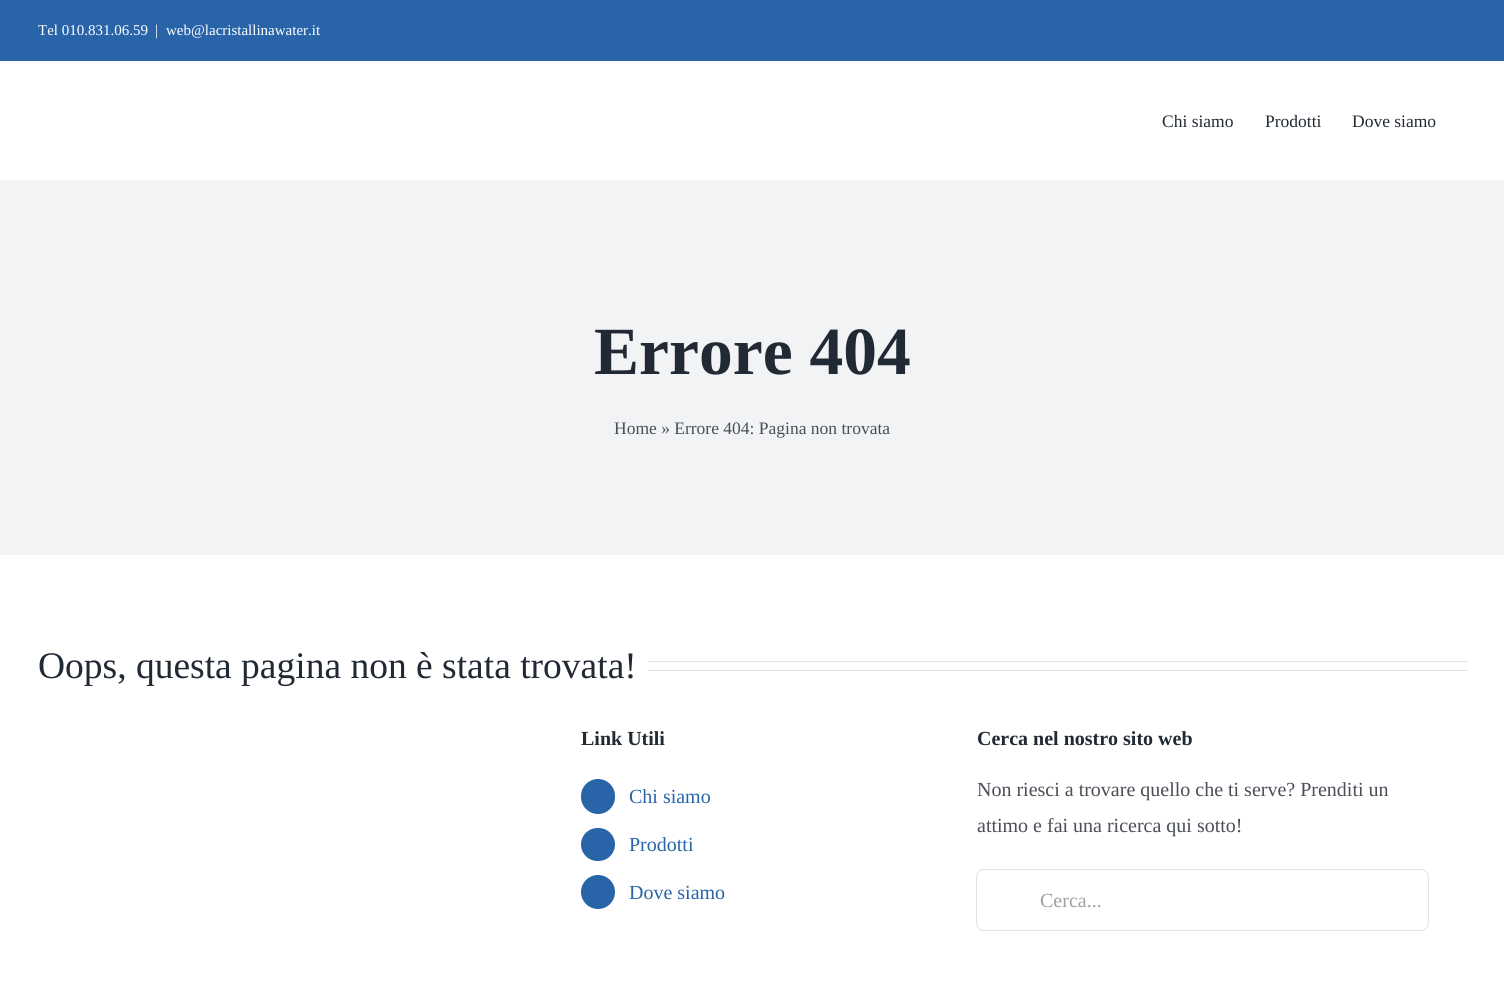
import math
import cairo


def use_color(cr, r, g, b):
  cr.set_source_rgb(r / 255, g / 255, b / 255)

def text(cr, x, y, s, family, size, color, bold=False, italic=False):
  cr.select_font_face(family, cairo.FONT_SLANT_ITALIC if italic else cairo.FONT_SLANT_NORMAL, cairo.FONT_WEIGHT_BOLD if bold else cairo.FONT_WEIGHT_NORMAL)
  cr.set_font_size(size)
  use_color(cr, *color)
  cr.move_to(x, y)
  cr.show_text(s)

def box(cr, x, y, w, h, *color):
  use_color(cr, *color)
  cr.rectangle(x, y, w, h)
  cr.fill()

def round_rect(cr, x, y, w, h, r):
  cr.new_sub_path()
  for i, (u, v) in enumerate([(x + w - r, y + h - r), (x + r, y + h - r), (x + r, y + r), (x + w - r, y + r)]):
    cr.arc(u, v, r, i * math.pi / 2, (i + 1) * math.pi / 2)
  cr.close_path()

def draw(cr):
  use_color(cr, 255, 255, 255)
  cr.paint()
  box(cr, 0, 0, 1504, 61, 41, 100, 169)
  box(cr, 0, 180, 1504, 375, 242, 243, 245)
  box(cr, 648, 661, 820, 1, 226, 226, 226)
  box(cr, 648, 670, 820, 1, 226, 226, 226)
  use_color(cr, 41, 100, 169)
  round_rect(cr, 581, 779, 34, 35, 17)
  cr.fill()
  round_rect(cr, 581, 828, 34, 33, 16.5)
  cr.fill()
  cr.arc(598, 892, 17, 0, 2 * math.pi)
  cr.fill()
  round_rect(cr, 976.5, 869.5, 452, 61, 7.5)
  use_color(cr, 226, 226, 226)
  cr.set_line_width(1)
  cr.stroke()
  text(cr, 38, 35, "Tel 010.831.06.59", "Liberation Serif", 15, (255, 255, 255))
  text(cr, 155, 35, "|", "Liberation Serif", 15, (255, 255, 255))
  text(cr, 166, 35, "web@lacristallinawater.it", "Liberation Serif", 15, (255, 255, 255))
  text(cr, 1162, 127, "Chi siamo", "Liberation Serif", 17.5, (33, 41, 52))
  text(cr, 1265, 127, "Prodotti", "Liberation Serif", 17.5, (33, 41, 52))
  text(cr, 1352, 127, "Dove siamo", "Liberation Serif", 17.5, (33, 41, 52))
  text(cr, 594, 374, "Errore 404", "Liberation Serif", 67.5, (33, 41, 52), bold=True)
  text(cr, 614, 434, "Home » Errore 404: Pagina non trovata", "Liberation Serif", 17.5, (74, 78, 87))
  text(cr, 38, 678, "Oops, questa pagina non è stata trovata!", "Liberation Serif", 37.5, (33, 41, 52))
  text(cr, 581, 745, "Link Utili", "Liberation Serif", 20, (33, 41, 52), bold=True)
  text(cr, 629, 803, "Chi siamo", "Liberation Serif", 20, (41, 100, 169))
  text(cr, 629, 851, "Prodotti", "Liberation Serif", 20, (41, 100, 169))
  text(cr, 629, 899, "Dove siamo", "Liberation Serif", 20, (41, 100, 169))
  text(cr, 977, 745, "Cerca nel nostro sito web", "Liberation Serif", 20, (33, 41, 52), bold=True)
  text(cr, 977, 796, "Non riesci a trovare quello che ti serve? Prenditi un", "Liberation Serif", 20, (74, 78, 87))
  text(cr, 977, 832, "attimo e fai una ricerca qui sotto!", "Liberation Serif", 20, (74, 78, 87))
  text(cr, 1040, 907, "Cerca...", "Liberation Serif", 20, (158, 160, 164))


surface = cairo.ImageSurface(cairo.FORMAT_RGB24, 1504, 1000)
cr = cairo.Context(surface)
options = cairo.FontOptions()
options.set_hint_metrics(cairo.HINT_METRICS_OFF)
options.set_hint_style(cairo.HINT_STYLE_NONE)
cr.set_font_options(options)
cr.set_miter_limit(4)
draw(cr)
surface.write_to_png("out.png")
